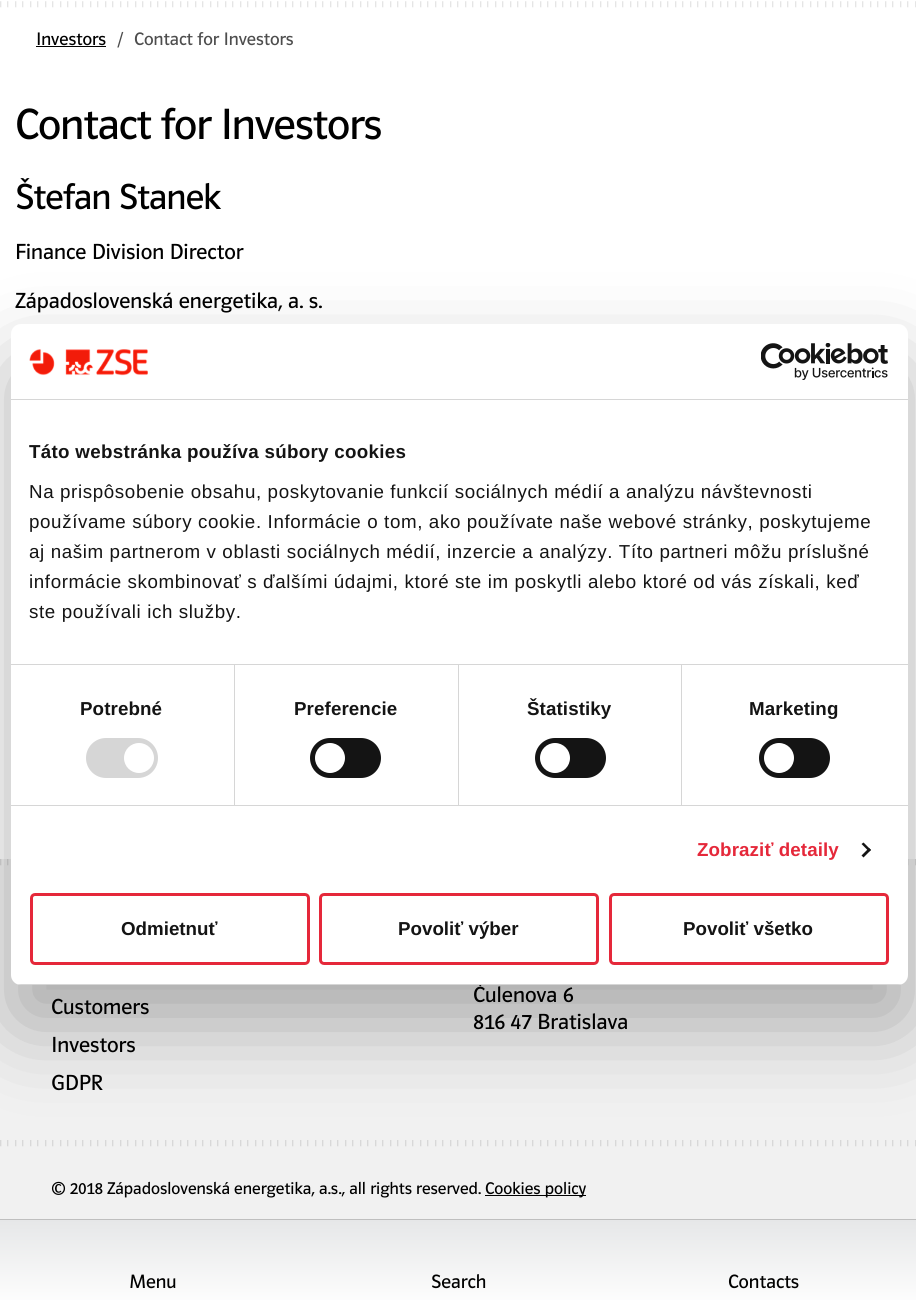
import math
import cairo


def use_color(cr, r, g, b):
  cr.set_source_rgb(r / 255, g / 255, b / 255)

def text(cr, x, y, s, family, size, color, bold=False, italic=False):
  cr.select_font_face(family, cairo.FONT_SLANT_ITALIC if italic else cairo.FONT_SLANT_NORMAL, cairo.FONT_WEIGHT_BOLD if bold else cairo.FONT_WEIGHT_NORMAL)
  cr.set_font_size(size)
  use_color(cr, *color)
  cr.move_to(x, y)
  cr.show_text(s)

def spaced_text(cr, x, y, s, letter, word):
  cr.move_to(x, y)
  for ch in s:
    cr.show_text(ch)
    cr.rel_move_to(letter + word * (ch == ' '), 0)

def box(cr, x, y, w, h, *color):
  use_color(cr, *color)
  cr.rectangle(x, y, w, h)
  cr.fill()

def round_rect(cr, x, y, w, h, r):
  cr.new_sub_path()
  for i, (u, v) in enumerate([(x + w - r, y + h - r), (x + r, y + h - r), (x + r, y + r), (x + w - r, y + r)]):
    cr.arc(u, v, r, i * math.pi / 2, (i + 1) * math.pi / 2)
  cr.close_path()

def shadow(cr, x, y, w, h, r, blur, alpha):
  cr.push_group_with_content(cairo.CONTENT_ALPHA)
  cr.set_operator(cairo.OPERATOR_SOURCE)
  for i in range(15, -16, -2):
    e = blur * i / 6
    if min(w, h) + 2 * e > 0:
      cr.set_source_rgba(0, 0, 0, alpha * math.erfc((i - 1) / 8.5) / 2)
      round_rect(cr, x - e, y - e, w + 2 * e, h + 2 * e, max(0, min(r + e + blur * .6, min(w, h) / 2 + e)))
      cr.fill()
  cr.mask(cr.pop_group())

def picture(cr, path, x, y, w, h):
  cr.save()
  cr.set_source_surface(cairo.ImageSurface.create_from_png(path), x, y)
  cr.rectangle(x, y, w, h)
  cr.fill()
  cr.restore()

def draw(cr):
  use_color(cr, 255, 255, 255)
  cr.paint()
  picture(cr, "img_01.png", 0, 1, 916, 7)
  box(cr, 36, 46, 70, 1, 0, 0, 0)
  box(cr, 0, 859, 916, 360, 241, 241, 241)
  picture(cr, "img_04.png", 0, 859, 916, 7)
  picture(cr, "img_04.png", 0, 1140, 916, 7)
  use_color(cr, 0, 0, 0)
  shadow(cr, 11, 364, 897, 661, 10, 42.5, 0.3)
  box(cr, 485, 1195, 101, 1, 0, 0, 0)
  gradient = cairo.LinearGradient(458, 1220, 458, 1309)
  gradient.add_color_stop_rgba(0, 0.902, 0.906, 0.91, 1)
  gradient.add_color_stop_rgba(1, 1, 1, 1, 1)
  cr.set_source(gradient)
  cr.rectangle(0, 1220, 916, 80)
  cr.fill()
  box(cr, 0, 1219, 916, 1, 191, 191, 191)
  text(cr, 36, 45, "Investors", "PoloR", 18.75, (0, 0, 0))
  text(cr, 117, 45, "/", "PoloR", 18.75, (77, 77, 77))
  text(cr, 134, 45, "Contact for Investors", "PoloR", 18.75, (77, 77, 77))
  cr.set_font_size(45.25)
  use_color(cr, 0, 0, 0)
  spaced_text(cr, 15, 139, "Contact for Investors", -0.9, 0)
  cr.set_font_size(37.5)
  spaced_text(cr, 15, 209, "Štefan Stanek", -0.75, 0)
  text(cr, 15, 259, "Finance Division Director", "PoloR", 22.6, (0, 0, 0))
  text(cr, 15, 308, "Západoslovenská energetika, a. s.", "PoloR", 22.6, (0, 0, 0))
  text(cr, 51, 1014, "Customers", "PoloR", 22.6, (0, 0, 0))
  text(cr, 51, 1052, "Investors", "PoloR", 22.6, (0, 0, 0))
  text(cr, 51, 1090, "GDPR", "PoloR", 22.6, (0, 0, 0))
  text(cr, 473, 1002, "Čulenova 6", "PoloR", 22.6, (0, 0, 0))
  use_color(cr, 255, 255, 255)
  round_rect(cr, 11, 324, 897, 661, 10)
  cr.fill()
  round_rect(cr, 610.5, 894.5, 277, 69, 3.5)
  use_color(cr, 229, 40, 58)
  cr.set_line_width(3)
  cr.stroke()
  text(cr, 683, 935, "Povoliť všetko", "Liberation Sans", 18.75, (20, 20, 20), bold=True)
  round_rect(cr, 320.5, 894.5, 277, 69, 3.5)
  use_color(cr, 229, 40, 58)
  cr.stroke()
  text(cr, 398, 935, "Povoliť výber", "Liberation Sans", 18.75, (20, 20, 20), bold=True)
  round_rect(cr, 31.5, 894.5, 277, 69, 3.5)
  use_color(cr, 229, 40, 58)
  cr.stroke()
  text(cr, 121, 935, "Odmietnuť", "Liberation Sans", 18.75, (20, 20, 20), bold=True)
  cr.save()
  round_rect(cr, 11, 324, 897, 661, 10)
  cr.clip()
  box(cr, 11, 984, 897, 1, 214, 214, 214)
  cr.restore()
  cr.new_path()
  cr.move_to(863.5, 842.5)
  cr.line_to(871, 850)
  cr.line_to(869, 851.5)
  cr.line_to(861.5, 844)
  cr.close_path()
  cr.fill()
  cr.new_path()
  cr.move_to(869, 848)
  cr.line_to(871, 850)
  cr.line_to(863.5, 857.5)
  cr.line_to(861.5, 855.5)
  cr.close_path()
  cr.fill()
  round_rect(cr, 759, 738, 71, 40, 20)
  cr.fill()
  use_color(cr, 255, 255, 255)
  cr.arc(779, 758, 15, 0, 2 * math.pi)
  cr.fill()
  use_color(cr, 20, 20, 20)
  round_rect(cr, 535, 738, 71, 40, 20)
  cr.fill()
  use_color(cr, 255, 255, 255)
  cr.arc(555, 758, 15, 0, 2 * math.pi)
  cr.fill()
  use_color(cr, 20, 20, 20)
  round_rect(cr, 310, 738, 71, 40, 20)
  cr.fill()
  use_color(cr, 255, 255, 255)
  cr.arc(330, 758, 15, 0, 2 * math.pi)
  cr.fill()
  use_color(cr, 214, 214, 214)
  round_rect(cr, 86, 738, 72, 40, 20)
  cr.fill()
  use_color(cr, 255, 255, 255)
  cr.arc(139, 758, 15, 0, 2 * math.pi)
  cr.fill()
  cr.select_font_face("Liberation Sans")
  use_color(cr, 20, 20, 20)
  spaced_text(cr, 29, 618, "ste používali ich služby.", 0.62, 0)
  spaced_text(cr, 29, 588, "informácie skombinovať s ďalšími údajmi, ktoré ste im poskytli alebo ktoré od vás získali, keď", 0.62, 0)
  spaced_text(cr, 29, 558, "aj našim partnerom v oblasti sociálnych médií, inzercie a analýzy. Títo partneri môžu príslušné", 0.62, 0)
  spaced_text(cr, 29, 528, "používame súbory cookie. Informácie o tom, ako používate naše webové stránky, poskytujeme", 0.62, 0)
  spaced_text(cr, 29, 498, "Na prispôsobenie obsahu, poskytovanie funkcií sociálnych médií a analýzu návštevnosti", 0.62, 0)
  cr.select_font_face("Liberation Sans", cairo.FONT_SLANT_NORMAL, cairo.FONT_WEIGHT_BOLD)
  spaced_text(cr, 29, 458, "Táto webstránka používa súbory cookies", 0.3, 0)
  box(cr, 11, 664, 897, 1, 214, 214, 214)
  use_color(cr, 229, 40, 58)
  spaced_text(cr, 697, 856, "Zobraziť detaily", 0.1, 0)
  use_color(cr, 20, 20, 20)
  spaced_text(cr, 749, 715, "Marketing", 0.1, 0)
  spaced_text(cr, 527, 715, "Štatistiky", 0.1, 0)
  box(cr, 681, 665, 1, 140, 214, 214, 214)
  use_color(cr, 20, 20, 20)
  spaced_text(cr, 294, 715, "Preferencie", 0.1, 0)
  box(cr, 458, 665, 1, 140, 214, 214, 214)
  use_color(cr, 20, 20, 20)
  spaced_text(cr, 80, 715, "Potrebné", 0.1, 0)
  box(cr, 234, 665, 1, 140, 214, 214, 214)
  box(cr, 11, 805, 897, 1, 214, 214, 214)
  picture(cr, "img_03.png", 761, 343, 127, 37)
  picture(cr, "img_02.png", 29, 349, 119, 27)
  box(cr, 11, 399, 897, 1, 214, 214, 214)
  text(cr, 473, 1029, "816 47 Bratislava", "PoloR", 22.6, (0, 0, 0))
  text(cr, 51, 1194, "© 2018 Západoslovenská energetika, a.s., all rights reserved.", "PoloR", 17.55, (0, 0, 0))
  text(cr, 485, 1194, "Cookies policy", "PoloR", 17.55, (0, 0, 0))
  text(cr, 129, 1288, "Menu", "PoloR", 20, (0, 0, 0))
  text(cr, 431, 1288, "Search", "PoloR", 20, (0, 0, 0))
  text(cr, 728, 1288, "Contacts", "PoloR", 20, (0, 0, 0))


surface = cairo.ImageSurface(cairo.FORMAT_RGB24, 916, 1308)
cr = cairo.Context(surface)
options = cairo.FontOptions()
options.set_hint_metrics(cairo.HINT_METRICS_OFF)
options.set_hint_style(cairo.HINT_STYLE_NONE)
cr.set_font_options(options)
cr.set_miter_limit(4)
draw(cr)
surface.write_to_png("out.png")
